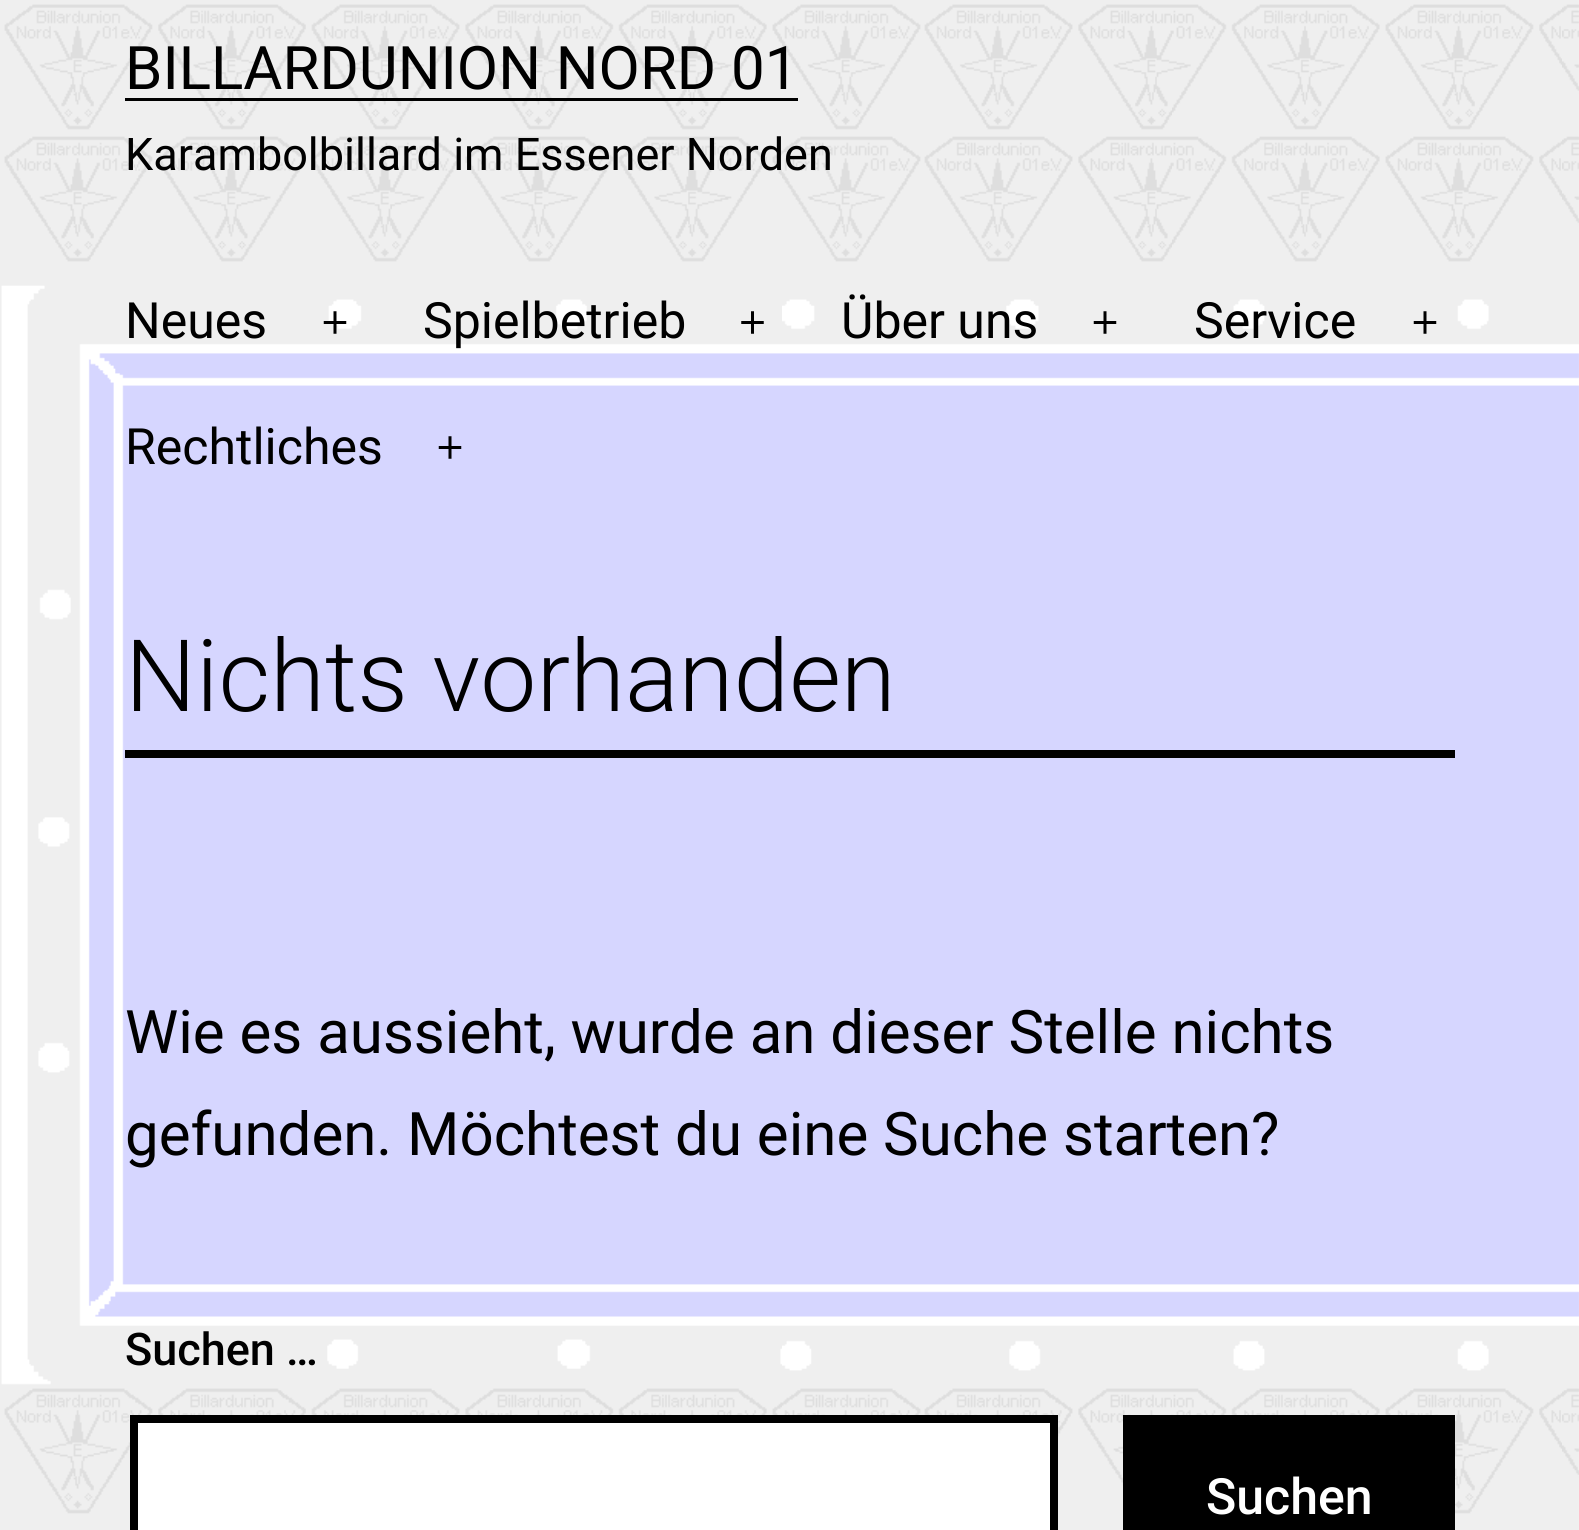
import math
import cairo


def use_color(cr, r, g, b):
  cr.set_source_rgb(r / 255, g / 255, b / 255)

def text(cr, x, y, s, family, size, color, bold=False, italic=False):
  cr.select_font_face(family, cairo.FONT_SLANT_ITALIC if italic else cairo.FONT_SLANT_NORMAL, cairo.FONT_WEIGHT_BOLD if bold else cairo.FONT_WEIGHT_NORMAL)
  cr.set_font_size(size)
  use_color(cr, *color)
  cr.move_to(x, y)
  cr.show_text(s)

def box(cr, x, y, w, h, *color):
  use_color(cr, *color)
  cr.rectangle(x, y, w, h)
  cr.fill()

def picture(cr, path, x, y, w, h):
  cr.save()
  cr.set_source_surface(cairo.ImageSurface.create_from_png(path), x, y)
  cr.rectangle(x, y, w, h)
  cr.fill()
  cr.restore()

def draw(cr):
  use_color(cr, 255, 255, 255)
  cr.paint()
  picture(cr, "img_01.png", 0, 0, 1579, 1530)
  box(cr, 125, 98, 673, 3, 0, 0, 0)
  picture(cr, "img_02.png", 323, 311, 24, 23)
  picture(cr, "img_03.png", 741, 311, 23, 23)
  picture(cr, "img_04.png", 1093, 311, 24, 23)
  picture(cr, "img_04.png", 1413, 311, 24, 23)
  picture(cr, "img_05.png", 438, 436, 24, 23)
  box(cr, 125, 750, 1330, 8, 0, 0, 0)
  use_color(cr, 255, 255, 255)
  cr.rectangle(134, 1419, 920, 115)
  cr.fill_preserve()
  use_color(cr, 0, 0, 0)
  cr.set_line_width(8)
  cr.stroke()
  box(cr, 1123, 1415, 332, 115, 0, 0, 0)
  text(cr, 125, 89, "BILLARDUNION NORD 01", "Roboto", 60, (0, 0, 0))
  text(cr, 125, 170, "Karambolbillard im Essener Norden", "Roboto", 45, (0, 0, 0))
  text(cr, 125, 338, "Neues", "Roboto", 50, (0, 0, 0))
  text(cr, 423, 338, "Spielbetrieb", "Roboto", 50, (0, 0, 0))
  text(cr, 841, 338, "Über uns", "Roboto", 50, (0, 0, 0))
  text(cr, 1194, 338, "Service", "Roboto", 50, (0, 0, 0))
  text(cr, 125, 464, "Rechtliches", "Roboto", 50, (0, 0, 0))
  text(cr, 125, 711, "Nichts vorhanden", "Roboto Light", 100, (0, 0, 0))
  text(cr, 125, 1053, "Wie es aussieht, wurde an dieser Stelle nichts", "Roboto", 60, (0, 0, 0))
  text(cr, 125, 1155, "gefunden. Möchtest du eine Suche starten?", "Roboto", 60, (0, 0, 0))
  text(cr, 125, 1365, "Suchen …", "Roboto Medium", 45, (0, 0, 0))
  text(cr, 1206, 1514, "Suchen", "Roboto Medium", 50, (255, 255, 255))


surface = cairo.ImageSurface(cairo.FORMAT_RGB24, 1579, 1530)
cr = cairo.Context(surface)
options = cairo.FontOptions()
options.set_hint_metrics(cairo.HINT_METRICS_OFF)
options.set_hint_style(cairo.HINT_STYLE_NONE)
cr.set_font_options(options)
cr.set_miter_limit(4)
draw(cr)
surface.write_to_png("out.png")
